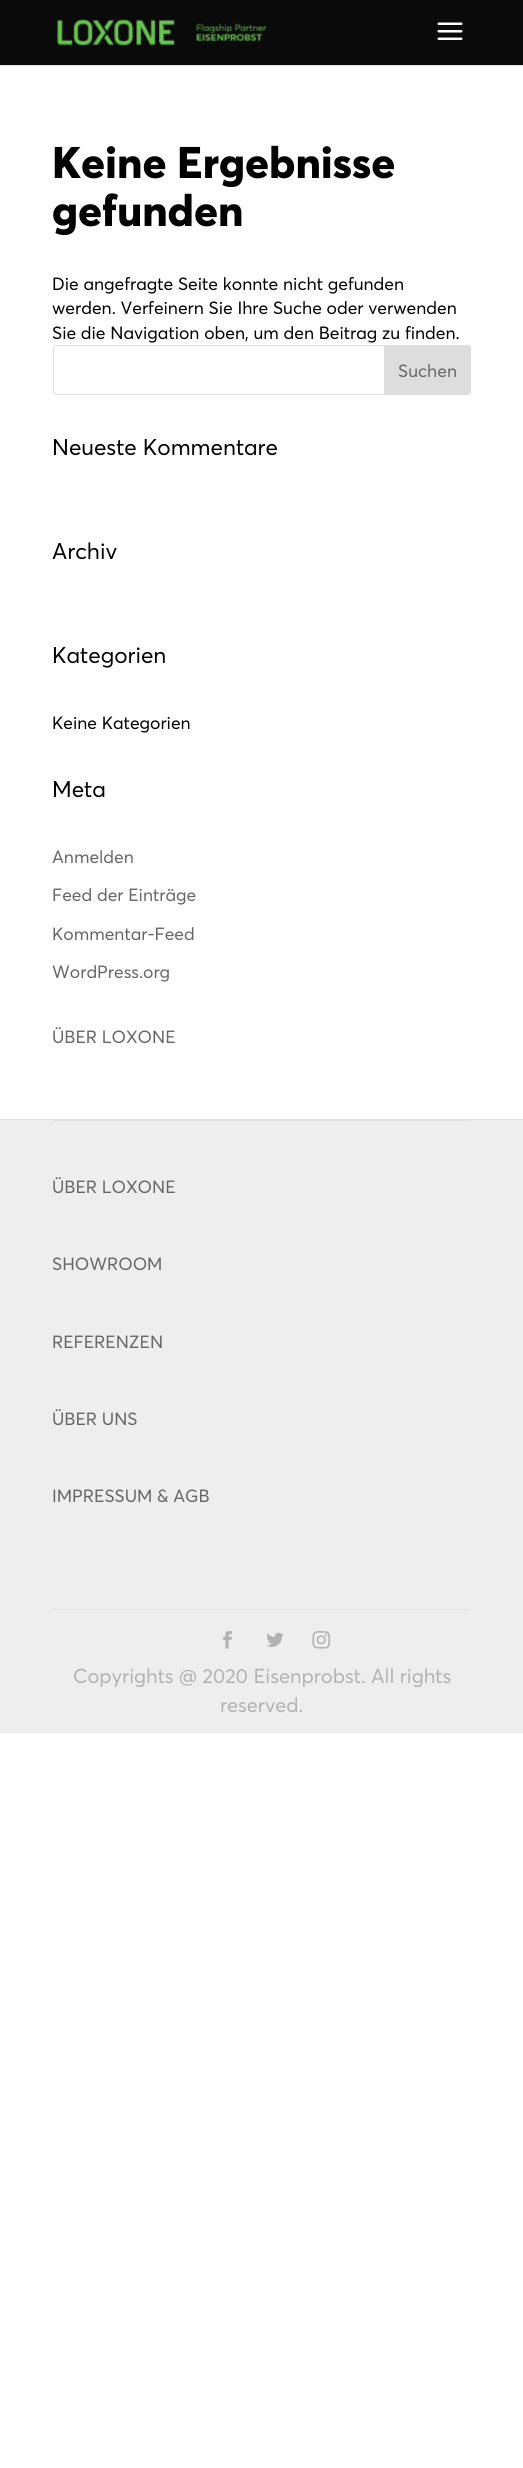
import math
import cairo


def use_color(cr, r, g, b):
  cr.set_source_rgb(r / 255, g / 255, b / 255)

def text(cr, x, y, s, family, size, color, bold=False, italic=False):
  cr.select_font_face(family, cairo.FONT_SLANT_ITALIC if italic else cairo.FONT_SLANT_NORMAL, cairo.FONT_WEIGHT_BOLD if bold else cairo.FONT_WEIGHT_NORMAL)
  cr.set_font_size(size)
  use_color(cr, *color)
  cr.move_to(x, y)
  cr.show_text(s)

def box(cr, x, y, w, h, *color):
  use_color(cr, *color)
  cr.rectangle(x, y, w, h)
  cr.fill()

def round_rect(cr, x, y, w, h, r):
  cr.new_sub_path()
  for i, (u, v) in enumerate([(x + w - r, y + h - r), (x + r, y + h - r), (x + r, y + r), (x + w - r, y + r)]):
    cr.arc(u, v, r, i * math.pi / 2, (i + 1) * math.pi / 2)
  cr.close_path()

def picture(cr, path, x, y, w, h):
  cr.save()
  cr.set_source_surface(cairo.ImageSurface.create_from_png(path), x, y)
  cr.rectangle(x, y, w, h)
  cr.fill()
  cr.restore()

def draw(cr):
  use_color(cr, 255, 255, 255)
  cr.paint()
  use_color(cr, 230, 230, 230)
  cr.new_path()
  cr.move_to(0, 65)
  cr.line_to(0, 66)
  cr.line_to(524, 66)
  cr.line_to(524, 1)
  cr.line_to(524, 65)
  cr.close_path()
  cr.fill()
  box(cr, 0, 0, 523, 65, 10, 10, 10)
  picture(cr, "img_01.png", 57, 19, 210, 27)
  picture(cr, "img_02.png", 437, 22, 26, 18)
  round_rect(cr, 53.5, 345.5, 417, 49, 3.5)
  use_color(cr, 221, 221, 221)
  cr.set_line_width(1)
  cr.stroke()
  cr.new_path()
  cr.move_to(384.5, 345.5)
  cr.line_to(467, 345.5)
  cr.curve_to(469, 345.5, 470.5, 347, 470.5, 349)
  cr.line_to(470.5, 391)
  cr.curve_to(470.5, 393, 469, 394.5, 467, 394.5)
  cr.line_to(384.5, 394.5)
  cr.close_path()
  cr.fill_preserve()
  cr.stroke()
  box(cr, 0, 1120, 523, 613, 238, 238, 238)
  box(cr, 0, 1119, 523, 1, 224, 224, 224)
  box(cr, 53, 1120, 418, 1, 224, 224, 224)
  box(cr, 53, 1609, 418, 1, 224, 224, 224)
  picture(cr, "img_03.png", 223, 1631, 9, 18)
  picture(cr, "img_04.png", 266, 1632, 18, 15)
  picture(cr, "img_05.png", 312, 1631, 18, 18)
  text(cr, 52, 178, "Keine Ergebnisse", "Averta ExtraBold", 43.75, (0, 0, 0))
  text(cr, 52, 226, "gefunden", "Averta ExtraBold", 43.75, (0, 0, 0))
  text(cr, 52, 290, "Die angefragte Seite konnte nicht gefunden", "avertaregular", 17.5, (0, 0, 0))
  text(cr, 52, 314, "werden. Verfeinern Sie Ihre Suche oder verwenden", "avertaregular", 17.5, (0, 0, 0))
  text(cr, 52, 339, "Sie die Navigation oben, um den Beitrag zu finden.", "avertaregular", 17.5, (0, 0, 0))
  text(cr, 398, 377, "Suchen", "avertaregular", 17.5, (102, 102, 102))
  text(cr, 52, 455, "Neueste Kommentare", "avertaregular", 22.5, (0, 0, 0))
  text(cr, 52, 559, "Archiv", "avertaregular", 22.5, (0, 0, 0))
  text(cr, 52, 663, "Kategorien", "avertaregular", 22.5, (0, 0, 0))
  text(cr, 52, 729, "Keine Kategorien", "avertaregular", 17.5, (0, 0, 0))
  text(cr, 52, 797, "Meta", "avertaregular", 22.5, (0, 0, 0))
  text(cr, 52, 863, "Anmelden", "avertaregular", 17.5, (102, 102, 102))
  text(cr, 52, 901, "Feed der Einträge", "avertaregular", 17.5, (102, 102, 102))
  text(cr, 52, 940, "Kommentar-Feed", "avertaregular", 17.5, (102, 102, 102))
  text(cr, 52, 978, "WordPress.org", "avertaregular", 17.5, (102, 102, 102))
  text(cr, 52, 1043, "ÜBER LOXONE", "avertaregular", 17.5, (102, 102, 102))
  text(cr, 52, 1193, "ÜBER LOXONE", "avertaregular", 17.5, (102, 102, 102))
  text(cr, 52, 1270, "SHOWROOM", "avertaregular", 17.5, (102, 102, 102))
  text(cr, 52, 1348, "REFERENZEN", "avertaregular", 17.5, (102, 102, 102))
  text(cr, 52, 1425, "ÜBER UNS", "avertaregular", 17.5, (102, 102, 102))
  text(cr, 52, 1502, "IMPRESSUM & AGB", "avertaregular", 17.5, (102, 102, 102))
  text(cr, 73, 1683, "Copyrights @ 2020 Eisenprobst. All rights", "avertaregular", 20, (178, 178, 178))
  text(cr, 220, 1712, "reserved.", "avertaregular", 20, (178, 178, 178))


surface = cairo.ImageSurface(cairo.FORMAT_RGB24, 523, 2468)
cr = cairo.Context(surface)
options = cairo.FontOptions()
options.set_hint_metrics(cairo.HINT_METRICS_OFF)
options.set_hint_style(cairo.HINT_STYLE_NONE)
cr.set_font_options(options)
cr.set_miter_limit(4)
draw(cr)
surface.write_to_png("out.png")
